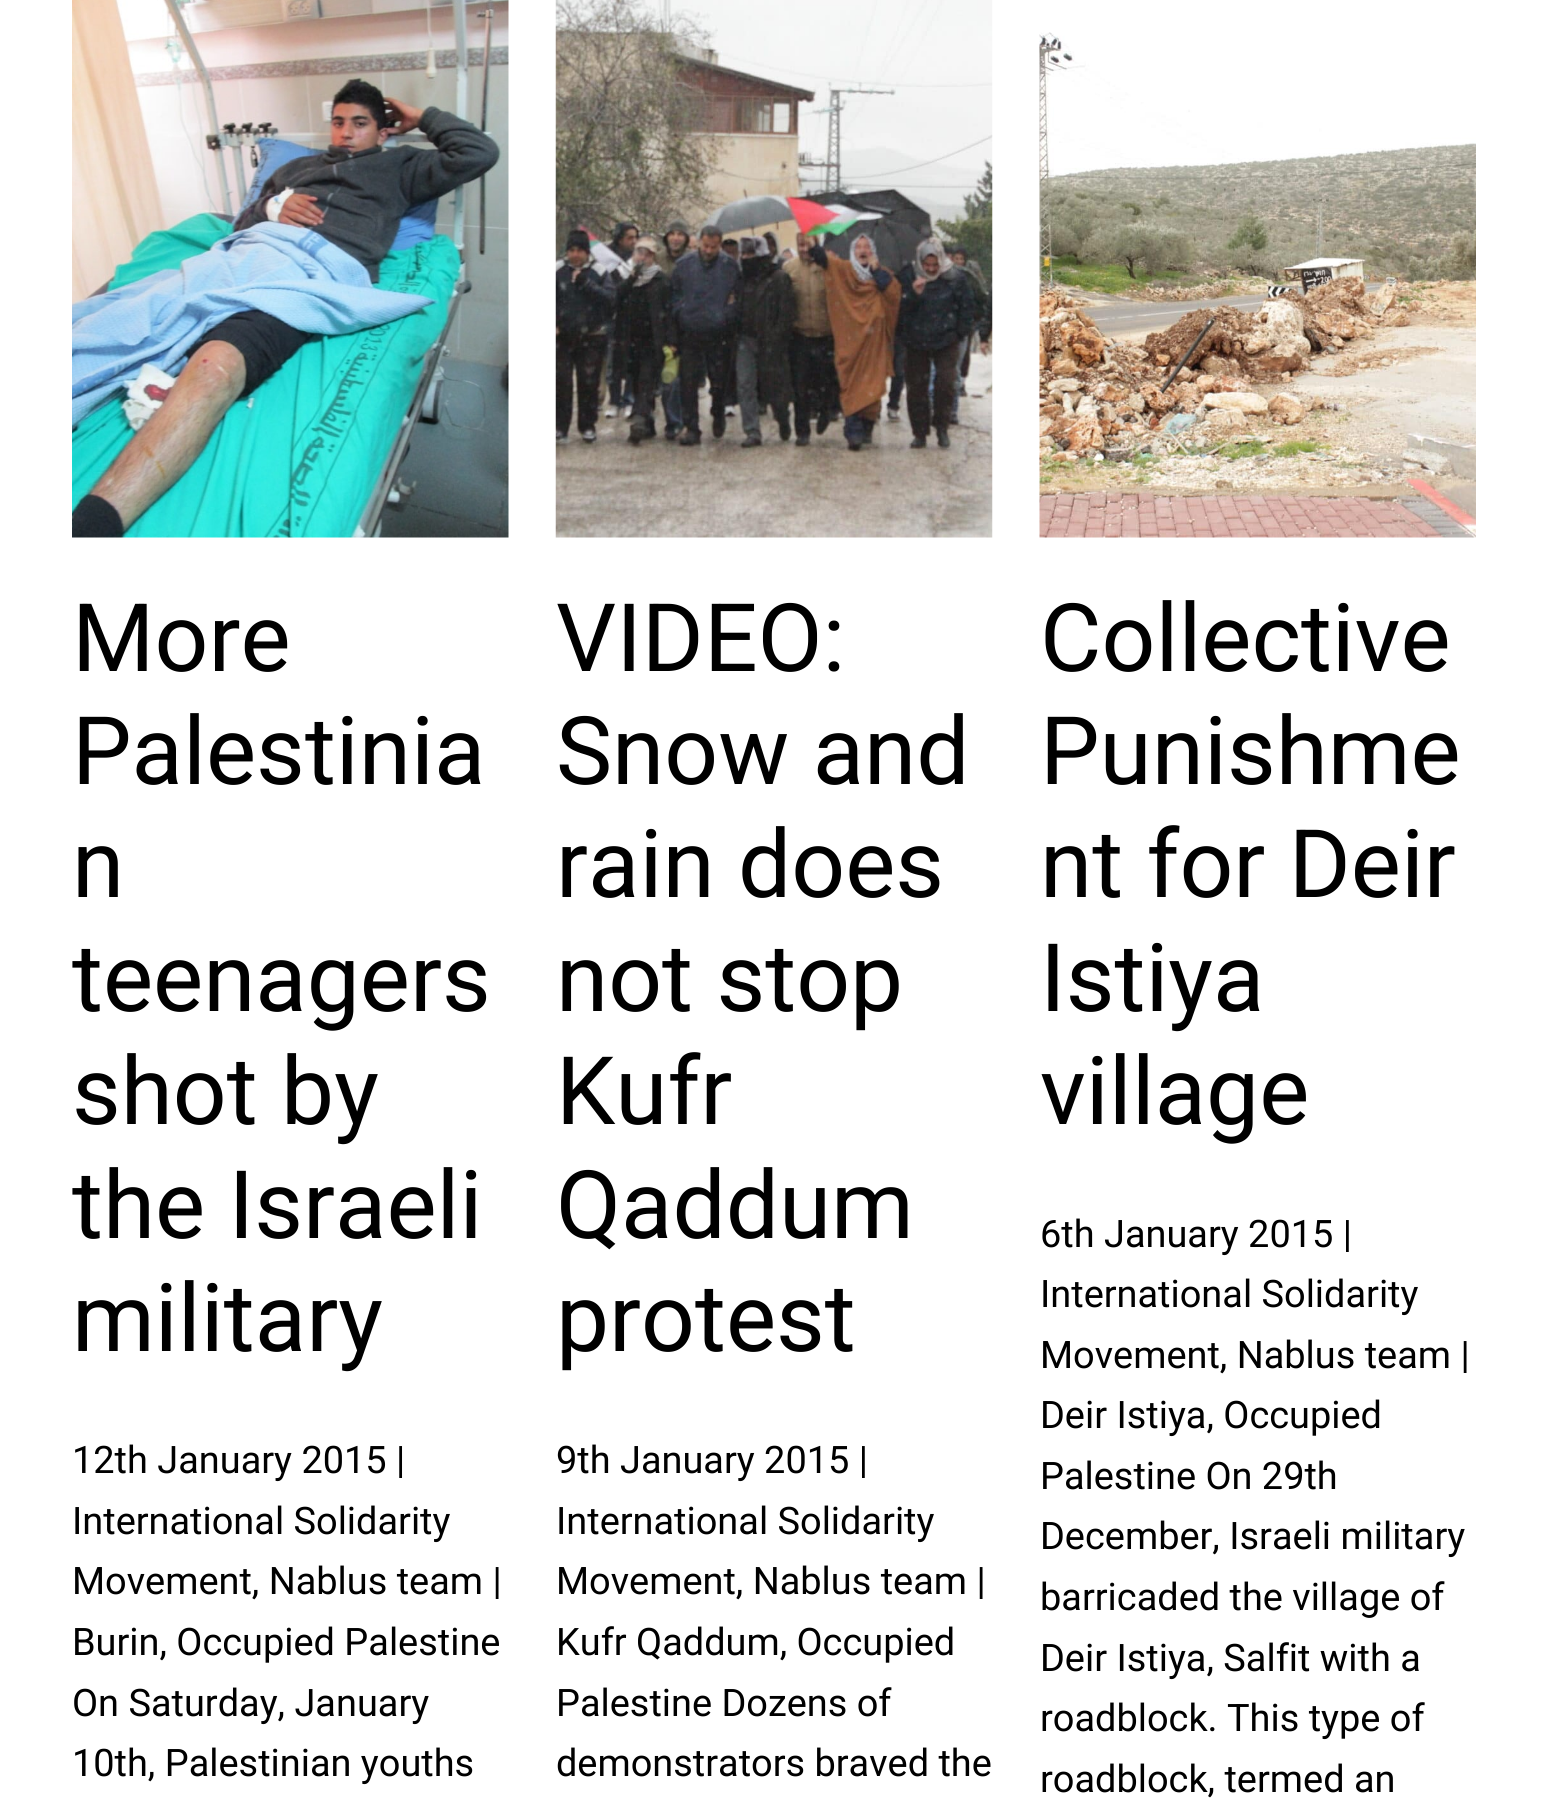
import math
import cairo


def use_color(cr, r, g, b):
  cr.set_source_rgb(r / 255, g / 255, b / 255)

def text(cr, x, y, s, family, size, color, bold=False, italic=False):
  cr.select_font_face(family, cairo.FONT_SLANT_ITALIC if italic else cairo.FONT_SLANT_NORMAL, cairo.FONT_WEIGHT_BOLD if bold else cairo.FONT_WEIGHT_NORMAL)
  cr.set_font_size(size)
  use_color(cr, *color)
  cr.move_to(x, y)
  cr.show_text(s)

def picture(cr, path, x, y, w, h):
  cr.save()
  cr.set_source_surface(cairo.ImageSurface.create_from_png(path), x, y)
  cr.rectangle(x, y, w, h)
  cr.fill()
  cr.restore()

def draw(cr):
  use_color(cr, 255, 255, 255)
  cr.paint()
  picture(cr, "img_01.png", 72, 0, 437, 538)
  picture(cr, "img_02.png", 555, 0, 438, 538)
  picture(cr, "img_03.png", 1039, 32, 437, 506)
  text(cr, 72, 671, "More", "Roboto", 94.5, (0, 0, 0))
  text(cr, 72, 784, "Palestinia", "Roboto", 94.5, (0, 0, 0))
  text(cr, 72, 897, "n", "Roboto", 94.5, (0, 0, 0))
  text(cr, 72, 1011, "teenagers", "Roboto", 94.5, (0, 0, 0))
  text(cr, 72, 1124, "shot by", "Roboto", 94.5, (0, 0, 0))
  text(cr, 72, 1238, "the Israeli", "Roboto", 94.5, (0, 0, 0))
  text(cr, 72, 1351, "military", "Roboto", 94.5, (0, 0, 0))
  text(cr, 72, 1473, "12th January 2015 |", "Roboto", 37.9, (0, 0, 0))
  text(cr, 72, 1534, "International Solidarity", "Roboto", 37.9, (0, 0, 0))
  text(cr, 72, 1594, "Movement, Nablus team |", "Roboto", 37.9, (0, 0, 0))
  text(cr, 72, 1655, "Burin, Occupied Palestine", "Roboto", 37.9, (0, 0, 0))
  text(cr, 72, 1716, "On Saturday, January", "Roboto", 37.9, (0, 0, 0))
  text(cr, 72, 1776, "10th, Palestinian youths", "Roboto", 37.9, (0, 0, 0))
  text(cr, 556, 671, "VIDEO:", "Roboto", 94.5, (0, 0, 0))
  text(cr, 556, 784, "Snow and", "Roboto", 94.5, (0, 0, 0))
  text(cr, 556, 897, "rain does", "Roboto", 94.5, (0, 0, 0))
  text(cr, 556, 1011, "not stop", "Roboto", 94.5, (0, 0, 0))
  text(cr, 556, 1124, "Kufr", "Roboto", 94.5, (0, 0, 0))
  text(cr, 556, 1238, "Qaddum", "Roboto", 94.5, (0, 0, 0))
  text(cr, 556, 1351, "protest", "Roboto", 94.5, (0, 0, 0))
  text(cr, 556, 1473, "9th January 2015 |", "Roboto", 37.9, (0, 0, 0))
  text(cr, 556, 1534, "International Solidarity", "Roboto", 37.9, (0, 0, 0))
  text(cr, 556, 1594, "Movement, Nablus team |", "Roboto", 37.9, (0, 0, 0))
  text(cr, 556, 1655, "Kufr Qaddum, Occupied", "Roboto", 37.9, (0, 0, 0))
  text(cr, 556, 1716, "Palestine Dozens of", "Roboto", 37.9, (0, 0, 0))
  text(cr, 556, 1776, "demonstrators braved the", "Roboto", 37.9, (0, 0, 0))
  text(cr, 1040, 671, "Collective", "Roboto", 94.5, (0, 0, 0))
  text(cr, 1040, 784, "Punishme", "Roboto", 94.5, (0, 0, 0))
  text(cr, 1040, 897, "nt for Deir", "Roboto", 94.5, (0, 0, 0))
  text(cr, 1040, 1011, "Istiya", "Roboto", 94.5, (0, 0, 0))
  text(cr, 1040, 1124, "village", "Roboto", 94.5, (0, 0, 0))
  text(cr, 1040, 1247, "6th January 2015 |", "Roboto", 37.9, (0, 0, 0))
  text(cr, 1040, 1307, "International Solidarity", "Roboto", 37.9, (0, 0, 0))
  text(cr, 1040, 1368, "Movement, Nablus team |", "Roboto", 37.9, (0, 0, 0))
  text(cr, 1040, 1428, "Deir Istiya, Occupied", "Roboto", 37.9, (0, 0, 0))
  text(cr, 1040, 1489, "Palestine On 29th", "Roboto", 37.9, (0, 0, 0))
  text(cr, 1040, 1549, "December, Israeli military", "Roboto", 37.9, (0, 0, 0))
  text(cr, 1040, 1610, "barricaded the village of", "Roboto", 37.9, (0, 0, 0))
  text(cr, 1040, 1671, "Deir Istiya, Salfit with a", "Roboto", 37.9, (0, 0, 0))
  text(cr, 1040, 1731, "roadblock. This type of", "Roboto", 37.9, (0, 0, 0))
  text(cr, 1040, 1792, "roadblock, termed an", "Roboto", 37.9, (0, 0, 0))


surface = cairo.ImageSurface(cairo.FORMAT_RGB24, 1548, 1803)
cr = cairo.Context(surface)
options = cairo.FontOptions()
options.set_hint_metrics(cairo.HINT_METRICS_OFF)
options.set_hint_style(cairo.HINT_STYLE_NONE)
cr.set_font_options(options)
cr.set_miter_limit(4)
draw(cr)
surface.write_to_png("out.png")
